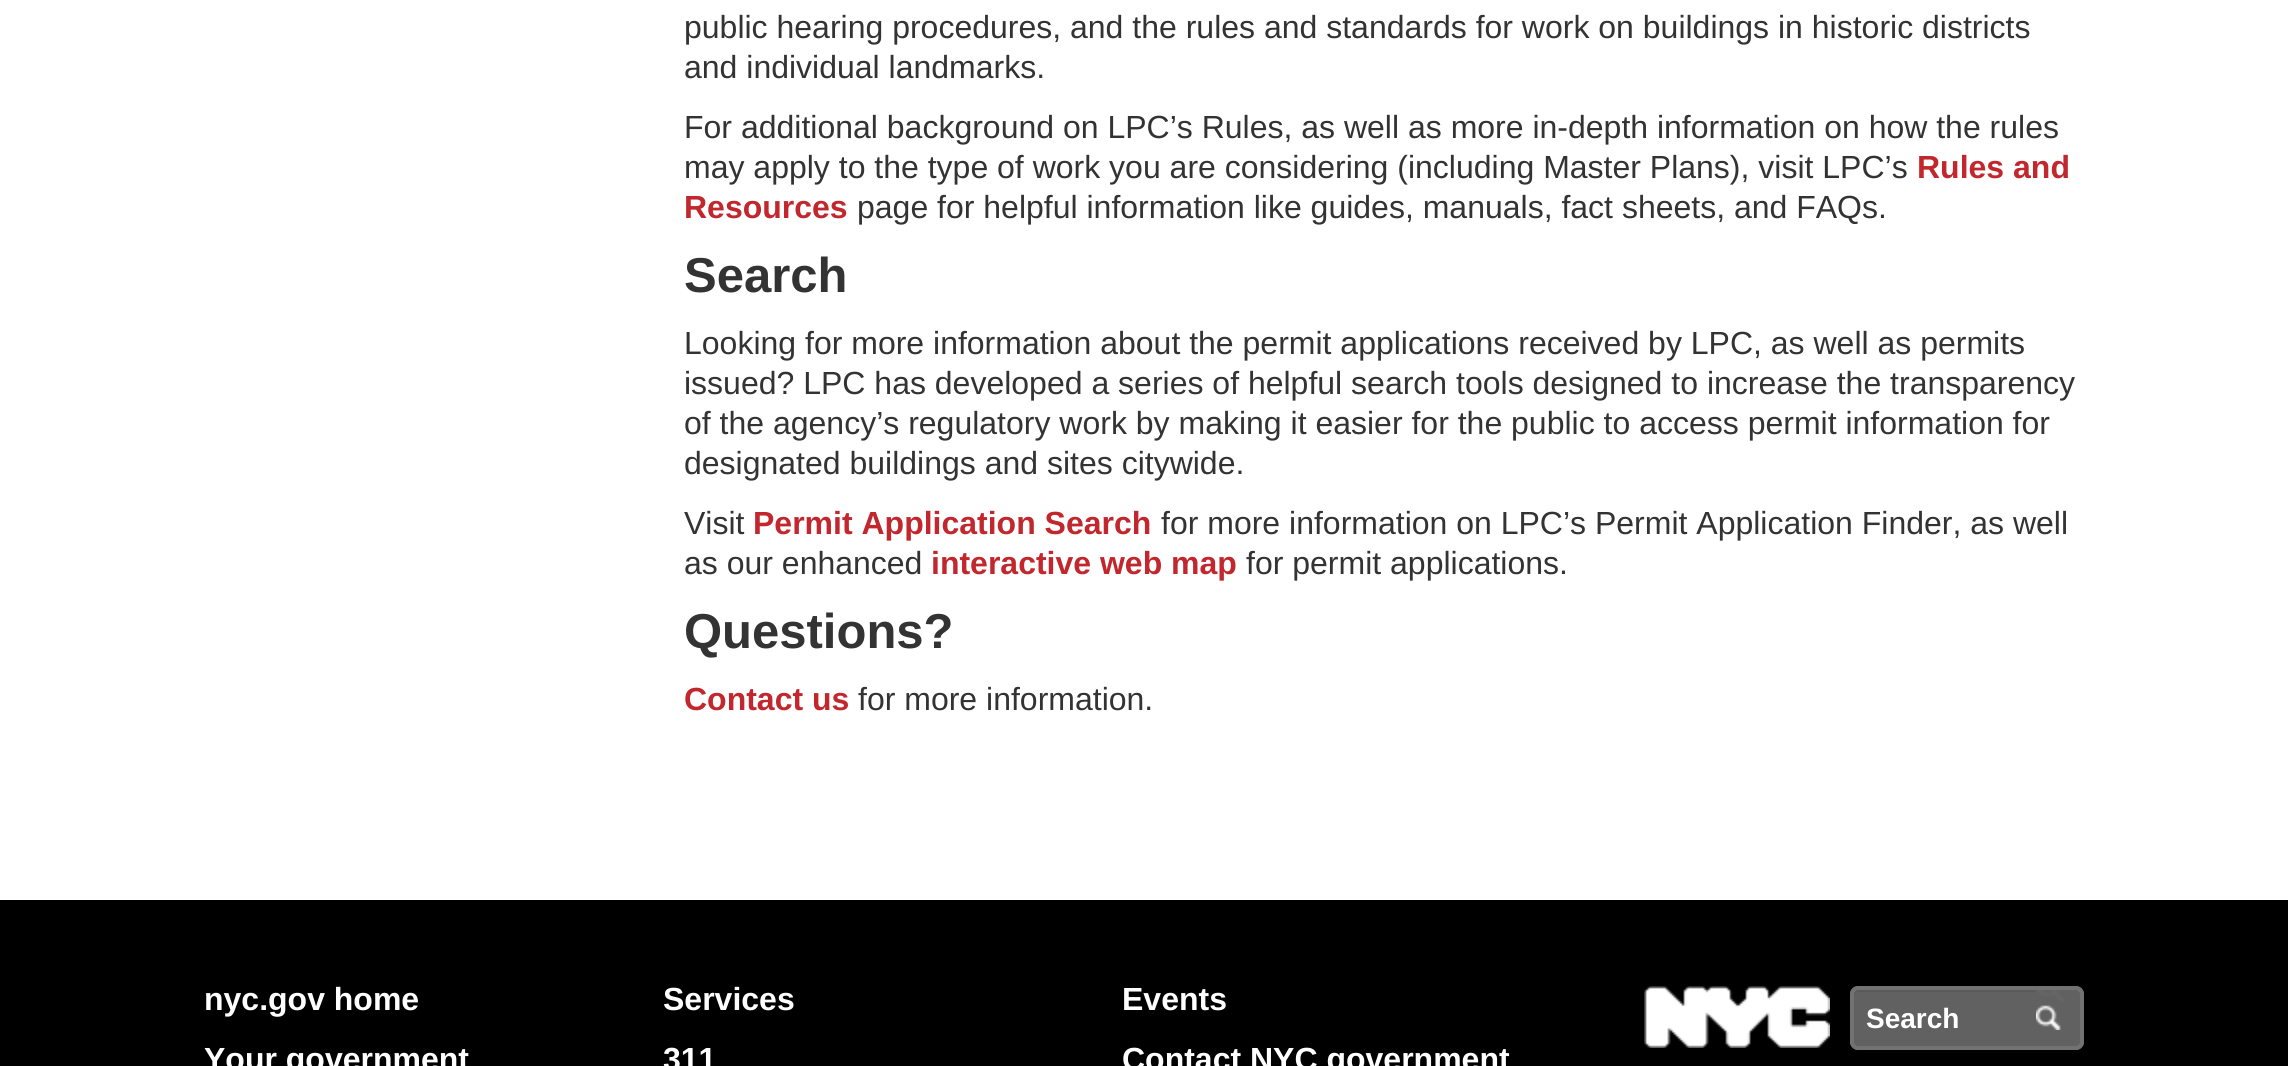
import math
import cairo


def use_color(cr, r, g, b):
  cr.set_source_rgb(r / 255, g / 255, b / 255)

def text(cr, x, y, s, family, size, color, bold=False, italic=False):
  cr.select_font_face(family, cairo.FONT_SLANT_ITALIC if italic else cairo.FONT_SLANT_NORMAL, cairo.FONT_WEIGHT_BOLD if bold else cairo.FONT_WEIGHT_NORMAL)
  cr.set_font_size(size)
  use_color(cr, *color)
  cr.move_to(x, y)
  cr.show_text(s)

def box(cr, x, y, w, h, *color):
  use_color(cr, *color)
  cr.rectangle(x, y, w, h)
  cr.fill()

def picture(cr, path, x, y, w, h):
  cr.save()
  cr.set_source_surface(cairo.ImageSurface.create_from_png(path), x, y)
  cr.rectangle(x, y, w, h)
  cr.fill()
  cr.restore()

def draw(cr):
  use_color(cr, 255, 255, 255)
  cr.paint()
  box(cr, 0, 900, 2288, 166, 0, 0, 0)
  picture(cr, "img_01.png", 1644, 986, 186, 62)
  use_color(cr, 97, 97, 97)
  cr.new_path()
  cr.move_to(1858, 986)
  cr.line_to(2036, 986)
  cr.line_to(2036, 1050)
  cr.line_to(1858, 1050)
  cr.curve_to(1853.5, 1050, 1850, 1046.5, 1850, 1042)
  cr.line_to(1850, 994)
  cr.curve_to(1850, 989.5, 1853.5, 986, 1858, 986)
  cr.close_path()
  cr.fill()
  use_color(cr, 90, 90, 90)
  cr.new_path()
  cr.move_to(1858, 992)
  cr.line_to(2036, 992)
  cr.line_to(2036, 990)
  cr.line_to(1858, 990)
  cr.curve_to(1856, 990, 1854, 992, 1854, 994)
  cr.line_to(1854, 996)
  cr.curve_to(1854, 994, 1856, 992, 1858, 992)
  cr.close_path()
  cr.fill()
  use_color(cr, 114, 114, 114)
  cr.set_fill_rule(cairo.FILL_RULE_EVEN_ODD)
  cr.new_path()
  cr.move_to(1858, 986)
  cr.line_to(2036, 986)
  cr.line_to(2036, 1050)
  cr.line_to(1858, 1050)
  cr.curve_to(1854, 1050, 1850, 1046, 1850, 1042)
  cr.line_to(1850, 994)
  cr.curve_to(1850, 990, 1854, 986, 1858, 986)
  cr.close_path()
  cr.move_to(1858, 990)
  cr.line_to(2036, 990)
  cr.line_to(2036, 1046)
  cr.line_to(1858, 1046)
  cr.curve_to(1856, 1046, 1854, 1044, 1854, 1042)
  cr.line_to(1854, 994)
  cr.curve_to(1854, 992, 1856, 990, 1858, 990)
  cr.close_path()
  cr.fill()
  use_color(cr, 97, 97, 97)
  cr.new_path()
  cr.move_to(2036, 986)
  cr.line_to(2076, 986)
  cr.curve_to(2080.5, 986, 2084, 989.5, 2084, 994)
  cr.line_to(2084, 1042)
  cr.curve_to(2084, 1046.5, 2080.5, 1050, 2076, 1050)
  cr.line_to(2036, 1050)
  cr.close_path()
  cr.fill()
  picture(cr, "img_02.png", 2036, 990, 28, 40)
  use_color(cr, 114, 114, 114)
  cr.new_path()
  cr.move_to(2036, 986)
  cr.line_to(2076, 986)
  cr.curve_to(2080, 986, 2084, 990, 2084, 994)
  cr.line_to(2084, 1042)
  cr.curve_to(2084, 1046, 2080, 1050, 2076, 1050)
  cr.line_to(2036, 1050)
  cr.close_path()
  cr.move_to(2036, 990)
  cr.line_to(2076, 990)
  cr.curve_to(2078, 990, 2080, 992, 2080, 994)
  cr.line_to(2080, 1042)
  cr.curve_to(2080, 1044, 2078, 1046, 2076, 1046)
  cr.line_to(2036, 1046)
  cr.close_path()
  cr.fill()
  text(cr, 684, 38, "public hearing procedures, and the rules and standards for work on buildings in historic districts", "Liberation Sans", 32, (51, 51, 51))
  text(cr, 684, 78, "and individual landmarks.", "Liberation Sans", 32, (51, 51, 51))
  text(cr, 684, 138, "For additional background on LPC’s Rules, as well as more in-depth information on how the rules", "Liberation Sans", 32, (51, 51, 51))
  text(cr, 684, 178, "may apply to the type of work you are considering (including Master Plans), visit LPC’s", "Liberation Sans", 32, (51, 51, 51))
  text(cr, 1917, 178, "Rules and", "Liberation Sans", 32, (193, 39, 45), bold=True)
  text(cr, 684, 218, "Resources", "Liberation Sans", 32, (193, 39, 45), bold=True)
  text(cr, 857, 218, "page for helpful information like guides, manuals, fact sheets, and FAQs.", "Liberation Sans", 32, (51, 51, 51))
  text(cr, 684, 292, "Search", "Liberation Sans", 49, (51, 51, 51), bold=True)
  text(cr, 684, 354, "Looking for more information about the permit applications received by LPC, as well as permits", "Liberation Sans", 32, (51, 51, 51))
  text(cr, 684, 394, "issued? LPC has developed a series of helpful search tools designed to increase the transparency", "Liberation Sans", 32, (51, 51, 51))
  text(cr, 684, 434, "of the agency’s regulatory work by making it easier for the public to access permit information for", "Liberation Sans", 32, (51, 51, 51))
  text(cr, 684, 474, "designated buildings and sites citywide.", "Liberation Sans", 32, (51, 51, 51))
  text(cr, 684, 534, "Visit", "Liberation Sans", 32, (51, 51, 51))
  text(cr, 753, 534, "Permit Application Search", "Liberation Sans", 32, (193, 39, 45), bold=True)
  text(cr, 1161, 534, "for more information on LPC’s Permit Application Finder, as well", "Liberation Sans", 32, (51, 51, 51))
  text(cr, 684, 574, "as our enhanced", "Liberation Sans", 32, (51, 51, 51))
  text(cr, 931, 574, "interactive web map", "Liberation Sans", 32, (193, 39, 45), bold=True)
  text(cr, 1246, 574, "for permit applications.", "Liberation Sans", 32, (51, 51, 51))
  text(cr, 684, 648, "Questions?", "Liberation Sans", 49, (51, 51, 51), bold=True)
  text(cr, 684, 710, "Contact us", "Liberation Sans", 32, (193, 39, 45), bold=True)
  text(cr, 858, 710, "for more information.", "Liberation Sans", 32, (51, 51, 51))
  text(cr, 204, 1010, "nyc.gov home", "Liberation Sans", 32, (255, 255, 255), bold=True)
  text(cr, 663, 1010, "Services", "Liberation Sans", 32, (255, 255, 255), bold=True)
  text(cr, 1122, 1010, "Events", "Liberation Sans", 32, (255, 255, 255), bold=True)
  text(cr, 204, 1070, "Your government", "Liberation Sans", 32, (255, 255, 255), bold=True)
  text(cr, 663, 1070, "311", "Liberation Sans", 32, (255, 255, 255), bold=True)
  text(cr, 1122, 1070, "Contact NYC government", "Liberation Sans", 32, (255, 255, 255), bold=True)
  text(cr, 1866, 1028, "Search", "Liberation Sans", 28, (255, 255, 255), bold=True)


surface = cairo.ImageSurface(cairo.FORMAT_RGB24, 2288, 1066)
cr = cairo.Context(surface)
options = cairo.FontOptions()
options.set_hint_metrics(cairo.HINT_METRICS_OFF)
options.set_hint_style(cairo.HINT_STYLE_NONE)
cr.set_font_options(options)
cr.set_miter_limit(4)
draw(cr)
surface.write_to_png("out.png")
